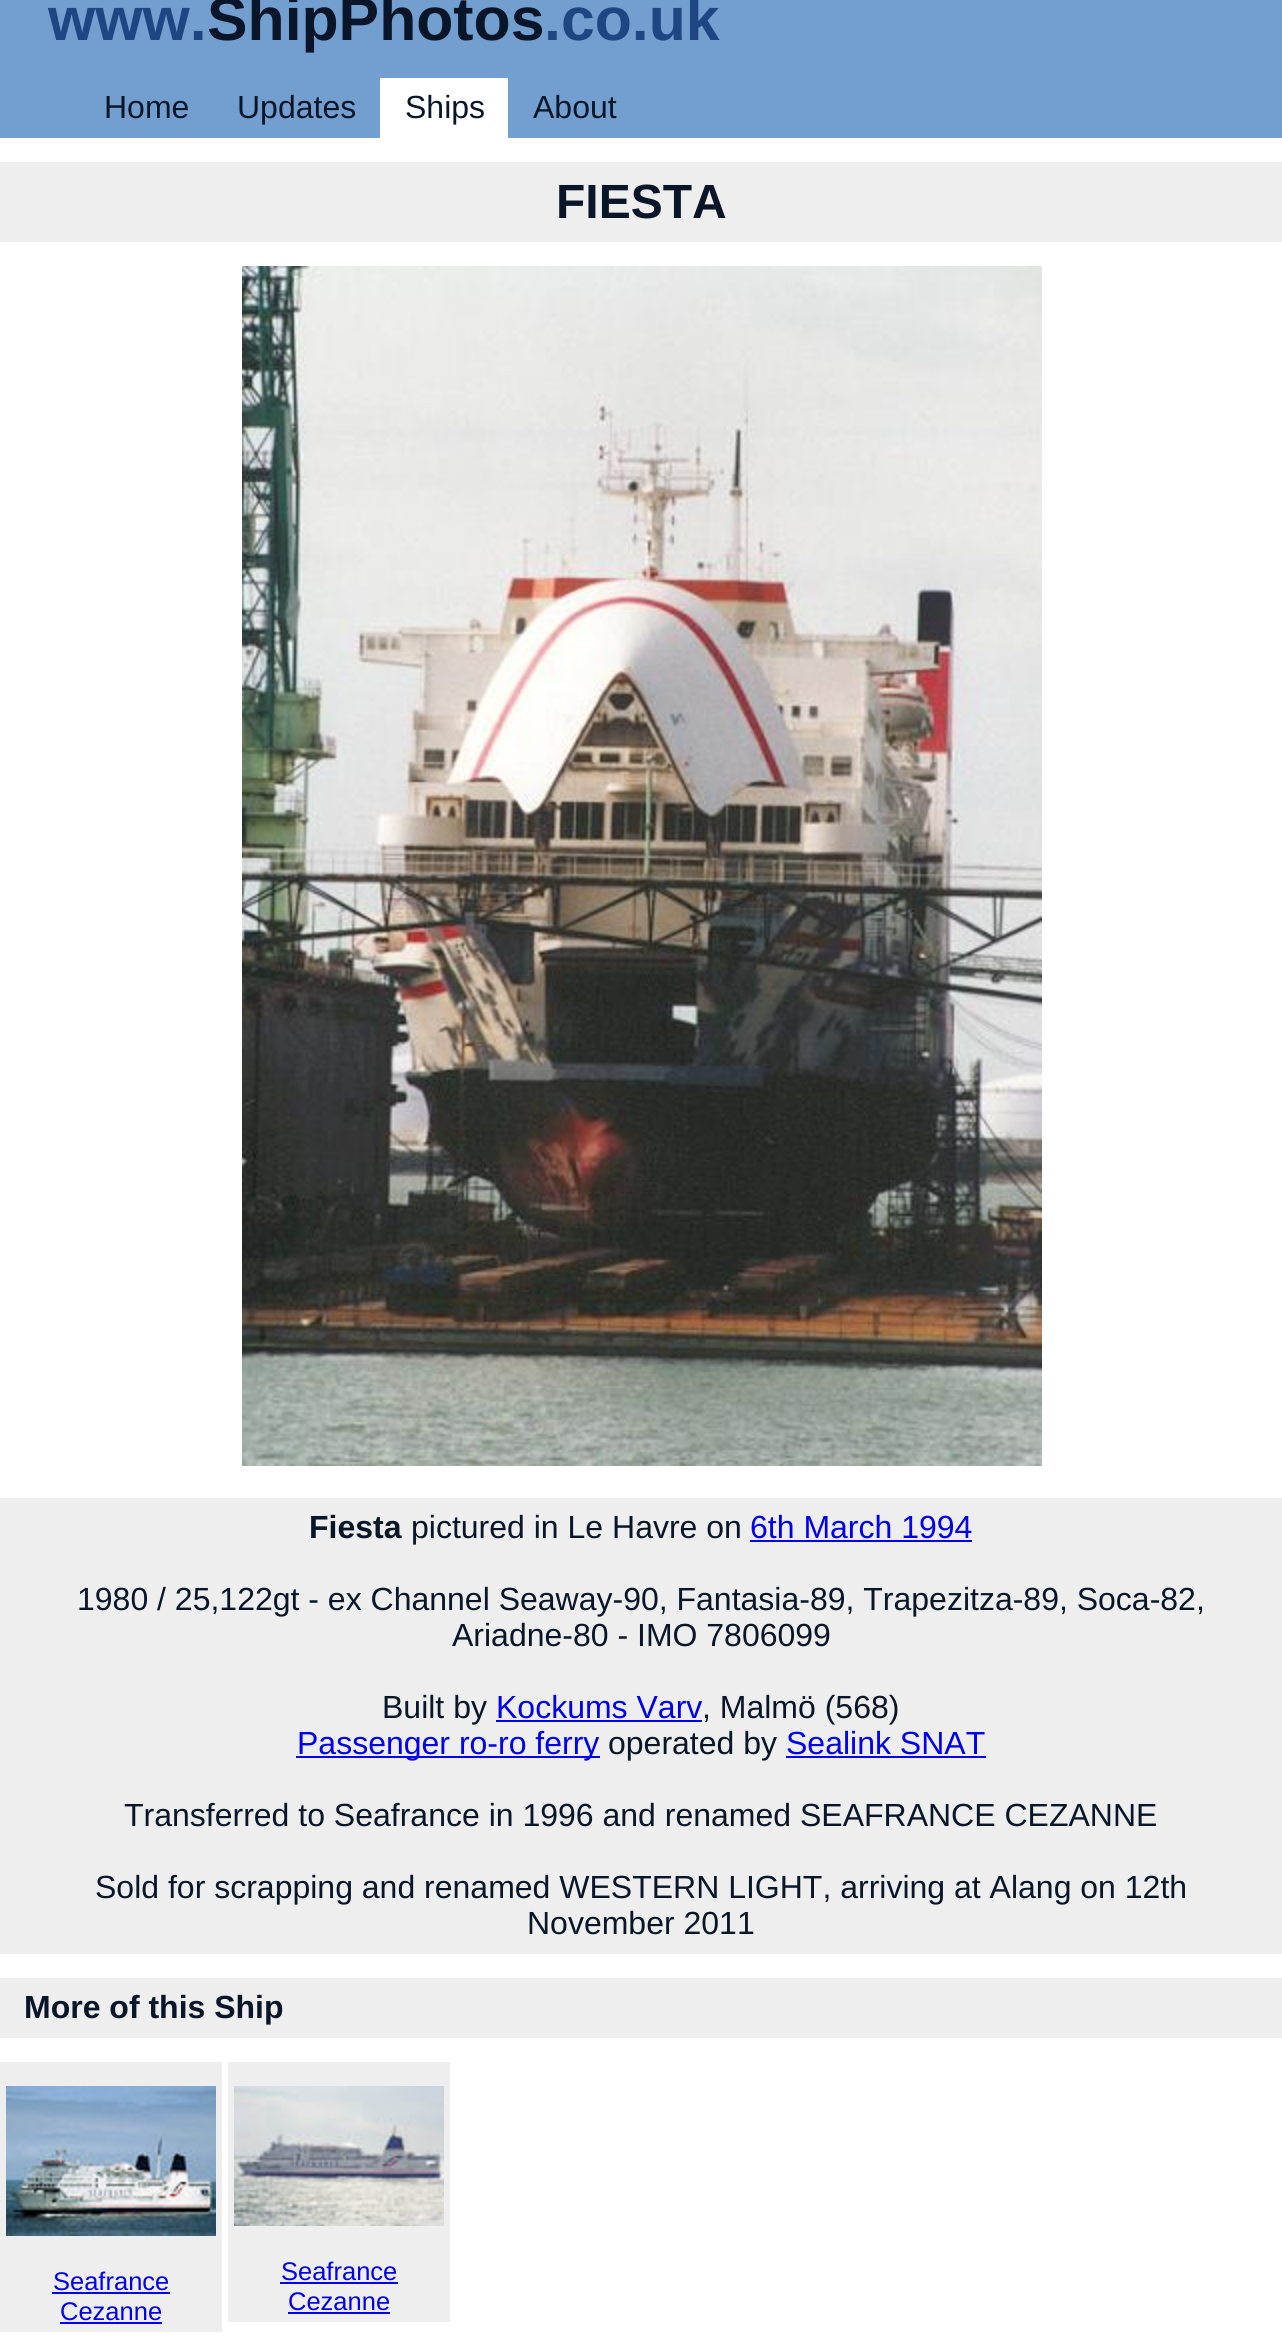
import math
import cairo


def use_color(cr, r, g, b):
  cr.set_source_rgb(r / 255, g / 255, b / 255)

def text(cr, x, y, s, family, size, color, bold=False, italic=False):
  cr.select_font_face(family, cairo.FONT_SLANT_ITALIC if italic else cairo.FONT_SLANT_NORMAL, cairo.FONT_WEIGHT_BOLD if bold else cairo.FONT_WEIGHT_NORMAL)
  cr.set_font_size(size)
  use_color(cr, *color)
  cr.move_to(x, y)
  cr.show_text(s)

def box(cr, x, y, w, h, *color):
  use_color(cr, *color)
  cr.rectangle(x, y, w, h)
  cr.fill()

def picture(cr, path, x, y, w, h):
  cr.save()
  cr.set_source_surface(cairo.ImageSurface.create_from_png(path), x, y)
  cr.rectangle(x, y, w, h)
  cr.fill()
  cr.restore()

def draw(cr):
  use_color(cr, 114, 159, 207)
  cr.paint()
  box(cr, 380, 78, 128, 60, 255, 255, 255)
  box(cr, 0, 138, 1282, 2210, 255, 255, 255)
  box(cr, 0, 162, 1282, 80, 238, 238, 238)
  picture(cr, "img_01.png", 242, 266, 800, 1200)
  box(cr, 0, 1498, 1282, 456, 238, 238, 238)
  box(cr, 750, 1540, 222, 2, 0, 0, 238)
  box(cr, 496, 1720, 206, 2, 0, 0, 238)
  box(cr, 296, 1756, 304, 2, 0, 0, 238)
  box(cr, 786, 1756, 200, 2, 0, 0, 238)
  box(cr, 0, 1978, 1282, 60, 238, 238, 238)
  box(cr, 0, 2062, 222, 270, 238, 238, 238)
  picture(cr, "img_02.png", 6, 2086, 210, 150)
  box(cr, 52, 2292, 118, 2, 0, 0, 238)
  box(cr, 60, 2322, 102, 2, 0, 0, 238)
  box(cr, 228, 2062, 222, 260, 238, 238, 238)
  picture(cr, "img_03.png", 234, 2086, 210, 140)
  box(cr, 280, 2282, 118, 2, 0, 0, 238)
  box(cr, 288, 2312, 102, 2, 0, 0, 238)
  text(cr, 48, 40, "www.", "Liberation Sans", 60.75, (30, 70, 130), bold=True)
  text(cr, 207, 40, "ShipPhotos", "Liberation Sans", 60.75, (9, 22, 41), bold=True)
  text(cr, 544, 40, ".co.uk", "Liberation Sans", 60.75, (30, 70, 130), bold=True)
  text(cr, 104, 118, "Home", "Liberation Sans", 32, (9, 22, 41))
  text(cr, 237, 118, "Updates", "Liberation Sans", 32, (9, 22, 41))
  text(cr, 405, 118, "Ships", "Liberation Sans", 32, (9, 22, 41))
  text(cr, 533, 118, "About", "Liberation Sans", 32, (9, 22, 41))
  text(cr, 556, 218, "FIESTA", "Liberation Sans", 48, (9, 22, 41), bold=True)
  text(cr, 309, 1538, "Fiesta", "Liberation Sans", 32, (9, 22, 41), bold=True)
  text(cr, 411, 1538, "pictured in Le Havre on", "Liberation Sans", 32, (9, 22, 41))
  text(cr, 750, 1538, "6th March 1994", "Liberation Sans", 32, (0, 0, 238))
  text(cr, 77, 1610, "1980 / 25,122gt - ex Channel Seaway-90, Fantasia-89, Trapezitza-89, Soca-82,", "Liberation Sans", 32, (9, 22, 41))
  text(cr, 452, 1646, "Ariadne-80 - IMO 7806099", "Liberation Sans", 32, (9, 22, 41))
  text(cr, 382, 1718, "Built by", "Liberation Sans", 32, (9, 22, 41))
  text(cr, 496, 1718, "Kockums Varv", "Liberation Sans", 32, (0, 0, 238))
  text(cr, 702, 1718, ", Malmö (568)", "Liberation Sans", 32, (9, 22, 41))
  text(cr, 297, 1754, "Passenger ro-ro ferry", "Liberation Sans", 32, (0, 0, 238))
  text(cr, 608, 1754, "operated by", "Liberation Sans", 32, (9, 22, 41))
  text(cr, 786, 1754, "Sealink SNAT", "Liberation Sans", 32, (0, 0, 238))
  text(cr, 124, 1826, "Transferred to Seafrance in 1996 and renamed SEAFRANCE CEZANNE", "Liberation Sans", 32, (9, 22, 41))
  text(cr, 95, 1898, "Sold for scrapping and renamed WESTERN LIGHT, arriving at Alang on 12th", "Liberation Sans", 32, (9, 22, 41))
  text(cr, 527, 1934, "November 2011", "Liberation Sans", 32, (9, 22, 41))
  text(cr, 24, 2018, "More of this Ship", "Liberation Sans", 32, (9, 22, 41), bold=True)
  text(cr, 53, 2290, "Seafrance", "Liberation Sans", 25.5, (0, 0, 238))
  text(cr, 60, 2320, "Cezanne", "Liberation Sans", 25.5, (0, 0, 238))
  text(cr, 281, 2280, "Seafrance", "Liberation Sans", 25.5, (0, 0, 238))
  text(cr, 288, 2310, "Cezanne", "Liberation Sans", 25.5, (0, 0, 238))


surface = cairo.ImageSurface(cairo.FORMAT_RGB24, 1282, 2348)
cr = cairo.Context(surface)
options = cairo.FontOptions()
options.set_hint_metrics(cairo.HINT_METRICS_OFF)
options.set_hint_style(cairo.HINT_STYLE_NONE)
cr.set_font_options(options)
cr.set_miter_limit(4)
draw(cr)
surface.write_to_png("out.png")
